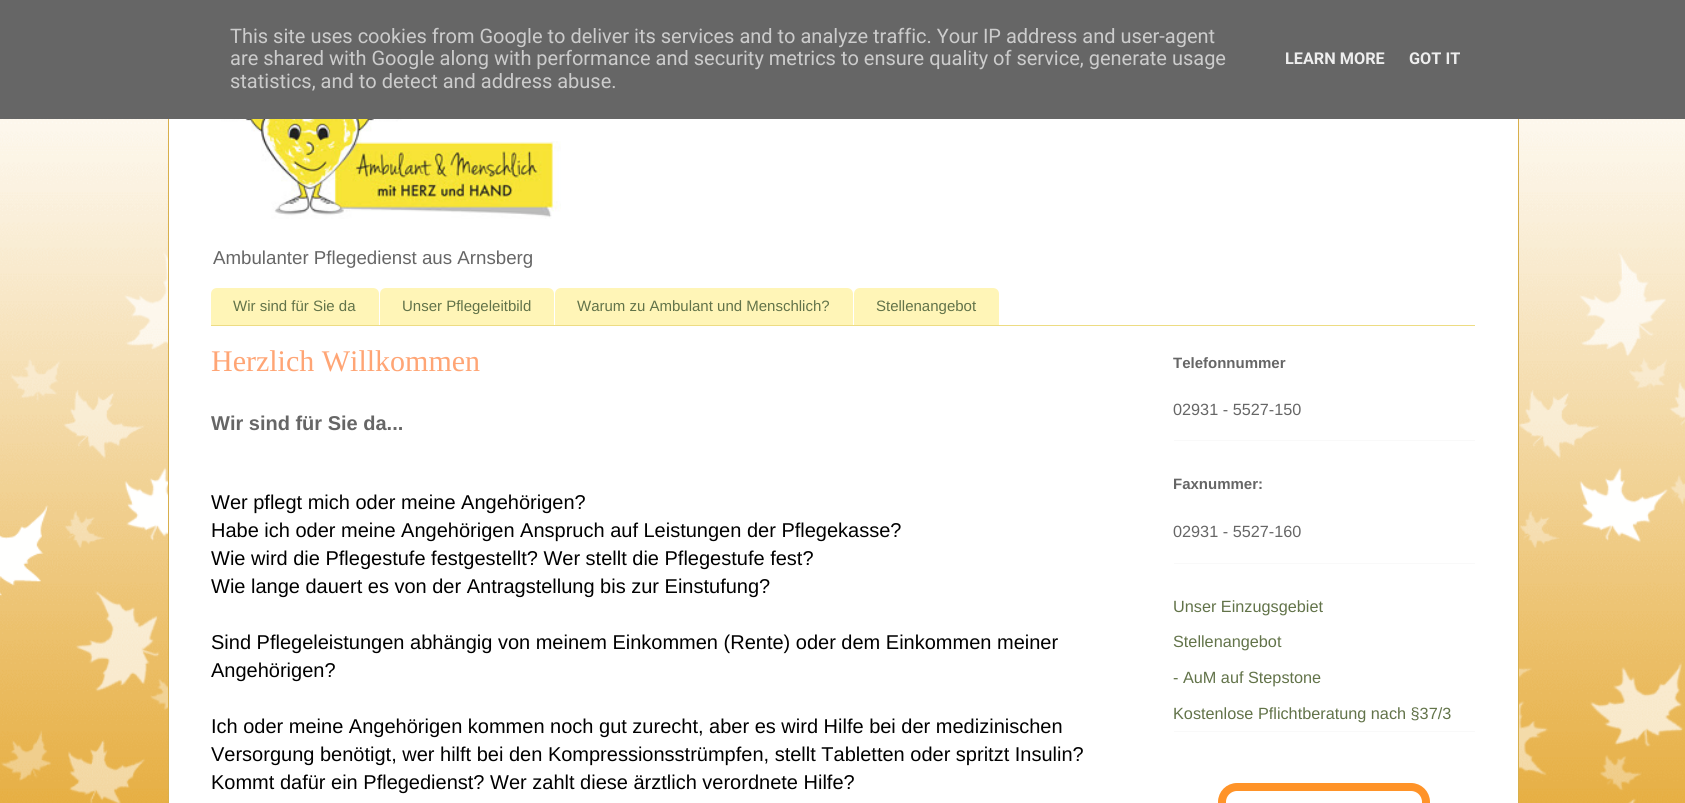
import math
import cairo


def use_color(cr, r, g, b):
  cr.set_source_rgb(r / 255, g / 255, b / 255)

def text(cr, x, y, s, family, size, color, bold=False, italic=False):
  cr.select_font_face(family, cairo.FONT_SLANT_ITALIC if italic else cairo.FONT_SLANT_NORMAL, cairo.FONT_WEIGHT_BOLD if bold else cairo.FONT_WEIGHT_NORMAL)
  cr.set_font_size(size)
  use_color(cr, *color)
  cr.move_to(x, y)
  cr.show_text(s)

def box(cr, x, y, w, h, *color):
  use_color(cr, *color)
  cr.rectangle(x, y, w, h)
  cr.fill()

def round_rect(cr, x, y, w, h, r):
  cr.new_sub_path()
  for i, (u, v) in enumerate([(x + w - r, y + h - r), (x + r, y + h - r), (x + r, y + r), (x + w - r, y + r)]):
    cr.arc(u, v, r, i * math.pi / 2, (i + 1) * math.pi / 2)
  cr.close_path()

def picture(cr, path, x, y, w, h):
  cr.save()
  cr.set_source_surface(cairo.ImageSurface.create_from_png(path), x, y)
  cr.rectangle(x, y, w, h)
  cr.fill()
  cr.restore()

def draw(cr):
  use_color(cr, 227, 163, 39)
  cr.paint()
  box(cr, 0, 0, 1685, 119, 102, 102, 102)
  picture(cr, "img_01.png", 0, 119, 1685, 684)
  box(cr, 169, 119, 1349, 684, 255, 255, 255)
  box(cr, 1518, 119, 1, 684, 216, 175, 76)
  box(cr, 168, 119, 1, 684, 216, 175, 76)
  picture(cr, "img_02.png", 219, 119, 342, 100)
  box(cr, 211, 325, 1264, 1, 237, 220, 131)
  use_color(cr, 255, 245, 183)
  cr.new_path()
  cr.move_to(217, 288)
  cr.line_to(373, 288)
  cr.curve_to(376.5, 288, 379, 290.5, 379, 294)
  cr.line_to(379, 325)
  cr.line_to(211, 325)
  cr.line_to(211, 294)
  cr.curve_to(211, 290.5, 213.5, 288, 217, 288)
  cr.close_path()
  cr.fill()
  cr.new_path()
  cr.move_to(386, 288)
  cr.line_to(548, 288)
  cr.curve_to(551.5, 288, 554, 290.5, 554, 294)
  cr.line_to(554, 325)
  cr.line_to(380, 325)
  cr.line_to(380, 294)
  cr.curve_to(380, 290.5, 382.5, 288, 386, 288)
  cr.close_path()
  cr.fill()
  cr.new_path()
  cr.move_to(561, 288)
  cr.line_to(847, 288)
  cr.curve_to(850.5, 288, 853, 290.5, 853, 294)
  cr.line_to(853, 325)
  cr.line_to(555, 325)
  cr.line_to(555, 294)
  cr.curve_to(555, 290.5, 557.5, 288, 561, 288)
  cr.close_path()
  cr.fill()
  cr.new_path()
  cr.move_to(860, 288)
  cr.line_to(993, 288)
  cr.curve_to(996.5, 288, 999, 290.5, 999, 294)
  cr.line_to(999, 325)
  cr.line_to(854, 325)
  cr.line_to(854, 294)
  cr.curve_to(854, 290.5, 856.5, 288, 860, 288)
  cr.close_path()
  cr.fill()
  box(cr, 1174, 440, 301, 1, 249, 249, 249)
  box(cr, 1174, 563, 301, 1, 249, 249, 249)
  box(cr, 1174, 731, 301, 1, 249, 249, 249)
  round_rect(cr, 1222, 787, 204, 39, 15)
  use_color(cr, 255, 147, 40)
  cr.set_line_width(8)
  cr.stroke()
  text(cr, 230, 43, "This site uses cookies from Google to deliver its services and to analyze traffic. Your IP address and user-agent", "Roboto", 20, (204, 204, 204))
  text(cr, 230, 65, "are shared with Google along with performance and security metrics to ensure quality of service, generate usage", "Roboto", 20, (204, 204, 204))
  text(cr, 230, 88, "statistics, and to detect and address abuse.", "Roboto", 20, (204, 204, 204))
  text(cr, 1285, 64, "LEARN MORE", "Roboto", 16.25, (238, 238, 238), bold=True)
  text(cr, 1409, 64, "GOT IT", "Roboto", 16.25, (238, 238, 238), bold=True)
  text(cr, 213, 264, "Ambulanter Pflegedienst aus Arnsberg", "Liberation Sans", 18.7, (102, 102, 102))
  text(cr, 233, 311, "Wir sind für Sie da", "Liberation Sans", 15, (98, 115, 73))
  text(cr, 402, 311, "Unser Pflegeleitbild", "Liberation Sans", 15, (98, 115, 73))
  text(cr, 577, 311, "Warum zu Ambulant und Menschlich?", "Liberation Sans", 15, (98, 115, 73))
  text(cr, 876, 311, "Stellenangebot", "Liberation Sans", 15, (98, 115, 73))
  text(cr, 211, 371, "Herzlich Willkommen", "Liberation Serif", 30, (255, 165, 117))
  text(cr, 211, 430, "Wir sind für Sie da...", "Liberation Sans", 20, (102, 102, 102), bold=True)
  text(cr, 211, 509, "Wer pflegt mich oder meine Angehörigen?", "Liberation Sans", 20, (0, 0, 0))
  text(cr, 211, 537, "Habe ich oder meine Angehörigen Anspruch auf Leistungen der Pflegekasse?", "Liberation Sans", 20, (0, 0, 0))
  text(cr, 211, 565, "Wie wird die Pflegestufe festgestellt? Wer stellt die Pflegestufe fest?", "Liberation Sans", 20, (0, 0, 0))
  text(cr, 211, 593, "Wie lange dauert es von der Antragstellung bis zur Einstufung?", "Liberation Sans", 20, (0, 0, 0))
  text(cr, 211, 649, "Sind Pflegeleistungen abhängig von meinem Einkommen (Rente) oder dem Einkommen meiner", "Liberation Sans", 20, (0, 0, 0))
  text(cr, 211, 677, "Angehörigen?", "Liberation Sans", 20, (0, 0, 0))
  text(cr, 211, 733, "Ich oder meine Angehörigen kommen noch gut zurecht, aber es wird Hilfe bei der medizinischen", "Liberation Sans", 20, (0, 0, 0))
  text(cr, 211, 761, "Versorgung benötigt, wer hilft bei den Kompressionsstrümpfen, stellt Tabletten oder spritzt Insulin?", "Liberation Sans", 20, (0, 0, 0))
  text(cr, 211, 789, "Kommt dafür ein Pflegedienst? Wer zahlt diese ärztlich verordnete Hilfe?", "Liberation Sans", 20, (0, 0, 0))
  text(cr, 1173, 368, "Telefonnummer", "Liberation Sans", 15, (102, 102, 102), bold=True)
  text(cr, 1173, 415, "02931 - 5527-150", "Liberation Sans", 16.25, (102, 102, 102))
  text(cr, 1173, 489, "Faxnummer:", "Liberation Sans", 15, (102, 102, 102), bold=True)
  text(cr, 1173, 537, "02931 - 5527-160", "Liberation Sans", 16.25, (102, 102, 102))
  text(cr, 1173, 612, "Unser Einzugsgebiet", "Liberation Sans", 16.25, (98, 115, 73))
  text(cr, 1173, 647, "Stellenangebot", "Liberation Sans", 16.25, (98, 115, 73))
  text(cr, 1173, 683, "- AuM auf Stepstone", "Liberation Sans", 16.25, (98, 115, 73))
  text(cr, 1173, 719, "Kostenlose Pflichtberatung nach §37/3", "Liberation Sans", 16.25, (98, 115, 73))


surface = cairo.ImageSurface(cairo.FORMAT_RGB24, 1685, 803)
cr = cairo.Context(surface)
options = cairo.FontOptions()
options.set_hint_metrics(cairo.HINT_METRICS_OFF)
options.set_hint_style(cairo.HINT_STYLE_NONE)
cr.set_font_options(options)
cr.set_miter_limit(4)
draw(cr)
surface.write_to_png("out.png")
